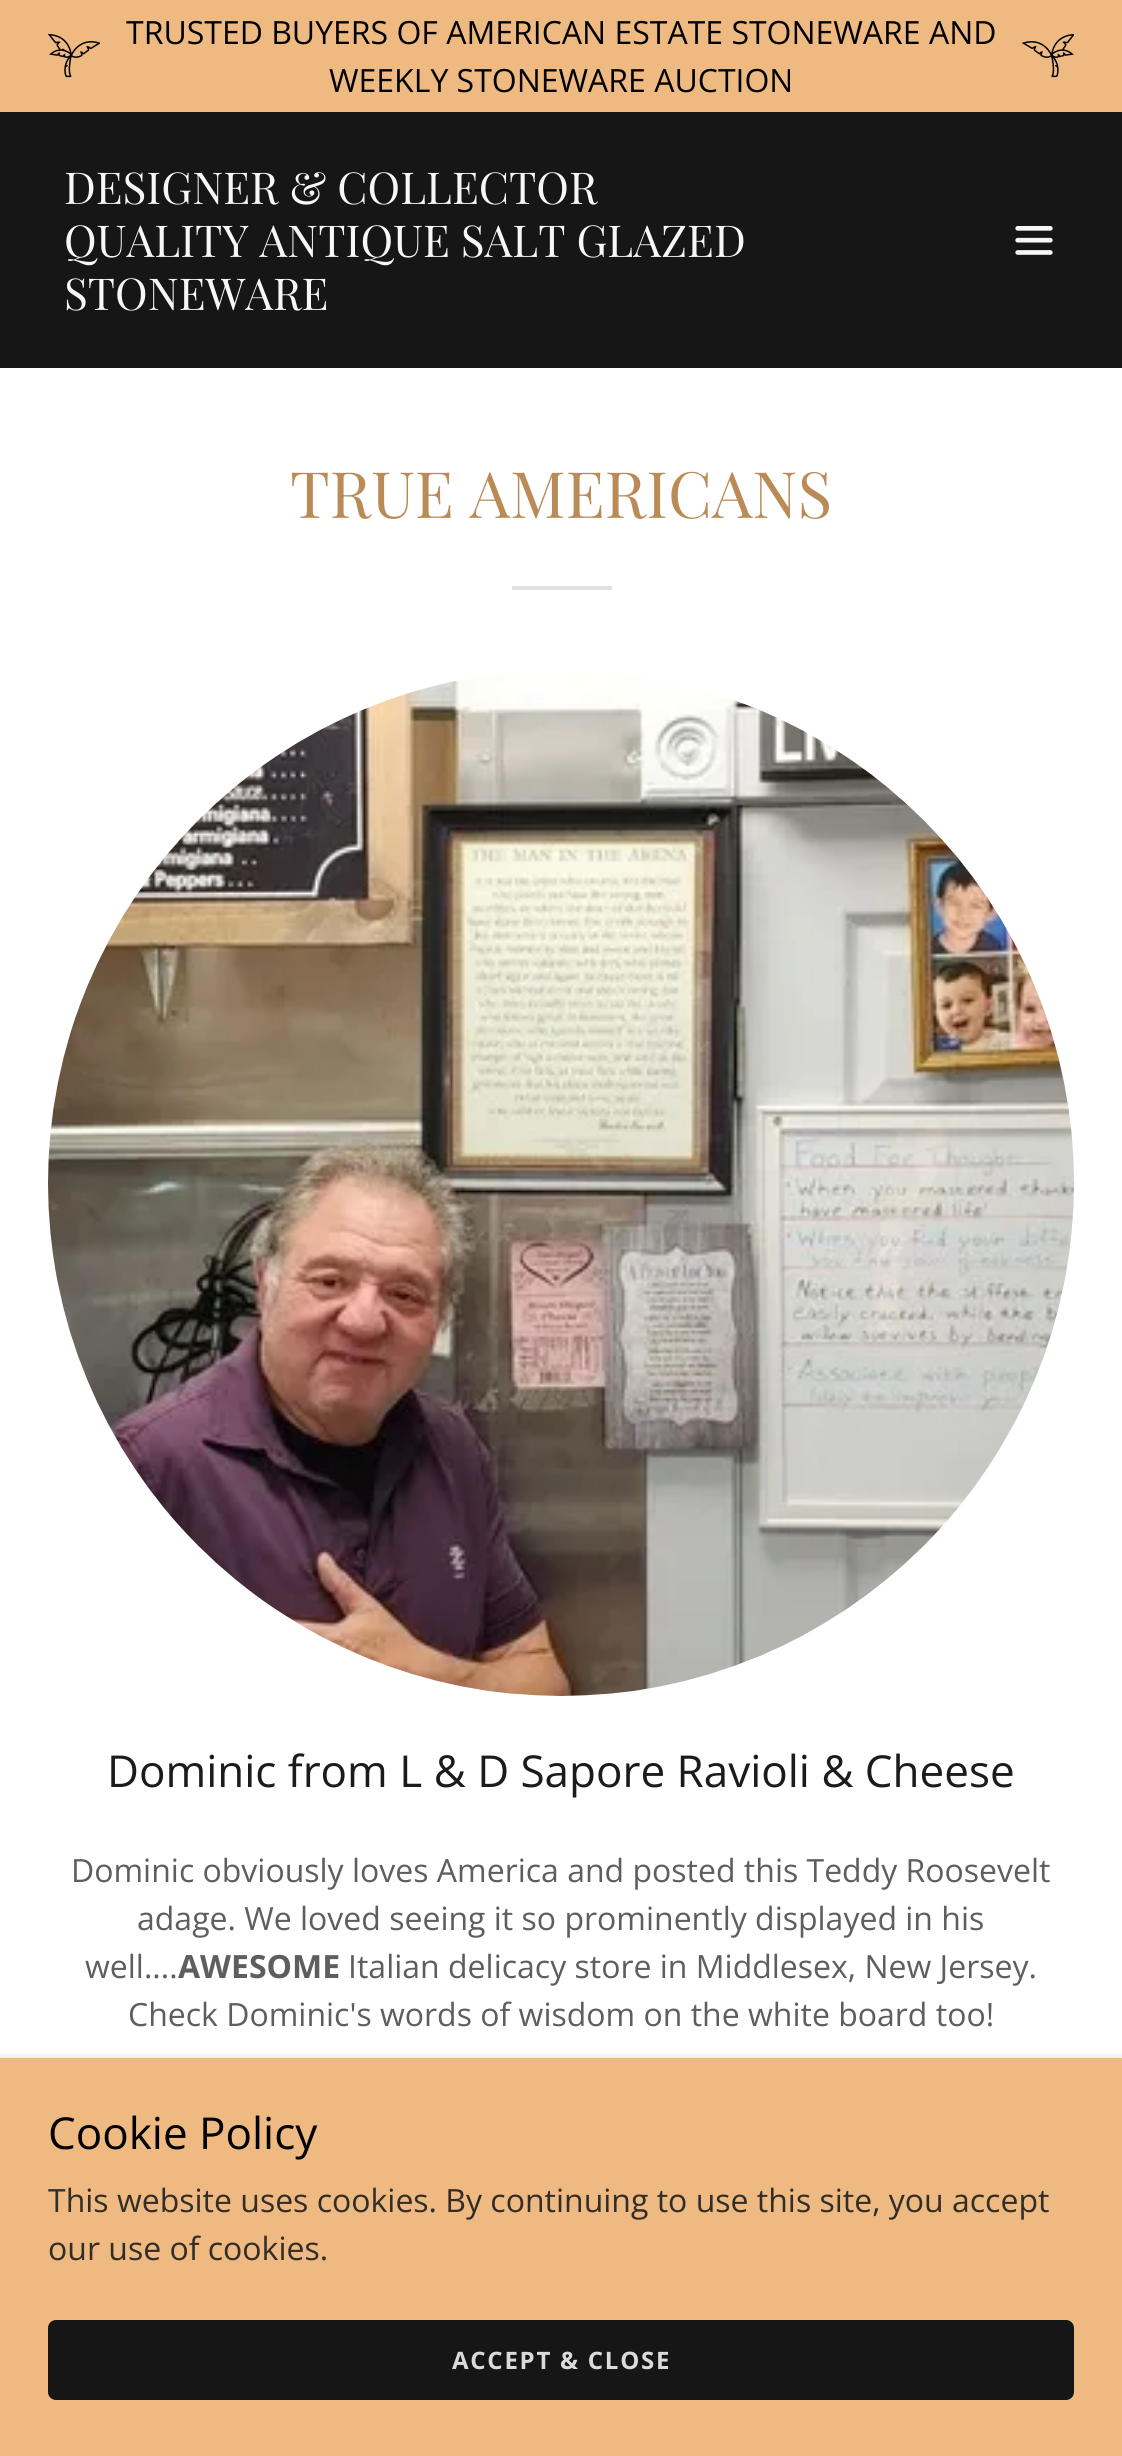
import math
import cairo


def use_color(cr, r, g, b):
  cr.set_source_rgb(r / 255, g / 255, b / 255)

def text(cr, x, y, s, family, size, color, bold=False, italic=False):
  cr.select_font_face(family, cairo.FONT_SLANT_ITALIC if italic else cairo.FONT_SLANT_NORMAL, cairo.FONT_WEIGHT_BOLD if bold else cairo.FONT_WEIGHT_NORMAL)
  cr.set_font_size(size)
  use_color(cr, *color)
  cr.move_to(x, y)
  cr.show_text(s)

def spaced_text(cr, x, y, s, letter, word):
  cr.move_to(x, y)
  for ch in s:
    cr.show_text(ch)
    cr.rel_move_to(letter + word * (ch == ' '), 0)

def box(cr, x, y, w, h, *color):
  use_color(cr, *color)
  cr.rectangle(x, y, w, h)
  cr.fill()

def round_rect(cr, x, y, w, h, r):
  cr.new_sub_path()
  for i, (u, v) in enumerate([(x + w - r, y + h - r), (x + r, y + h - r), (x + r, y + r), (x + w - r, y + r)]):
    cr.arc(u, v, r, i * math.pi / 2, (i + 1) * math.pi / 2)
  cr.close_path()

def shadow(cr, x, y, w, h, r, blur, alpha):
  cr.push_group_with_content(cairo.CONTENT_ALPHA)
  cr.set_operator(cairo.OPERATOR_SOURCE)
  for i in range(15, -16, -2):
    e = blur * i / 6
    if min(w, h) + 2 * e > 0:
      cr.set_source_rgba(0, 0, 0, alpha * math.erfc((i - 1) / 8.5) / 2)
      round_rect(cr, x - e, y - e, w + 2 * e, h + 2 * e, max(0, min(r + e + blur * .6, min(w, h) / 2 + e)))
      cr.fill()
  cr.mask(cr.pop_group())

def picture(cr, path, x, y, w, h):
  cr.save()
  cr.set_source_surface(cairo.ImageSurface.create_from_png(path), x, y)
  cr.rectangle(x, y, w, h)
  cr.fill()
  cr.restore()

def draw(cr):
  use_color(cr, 22, 22, 22)
  cr.paint()
  box(cr, 0, 0, 1122, 112, 239, 186, 129)
  picture(cr, "img_01.png", 48, 33, 52, 45)
  picture(cr, "img_02.png", 1022, 33, 52, 45)
  picture(cr, "img_03.png", 1015, 226, 38, 29)
  box(cr, 0, 368, 1122, 1690, 255, 255, 255)
  box(cr, 512, 586, 100, 4, 226, 226, 226)
  picture(cr, "img_04.png", 48, 670, 1026, 1026)
  use_color(cr, 0, 0, 0)
  shadow(cr, 0, 2062, 1122, 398, 0, 6, 0.3)
  box(cr, 0, 2058, 1122, 398, 239, 186, 129)
  use_color(cr, 22, 22, 22)
  round_rect(cr, 48, 2320, 1026, 80, 8)
  cr.fill()
  text(cr, 126, 44, "TRUSTED BUYERS OF AMERICAN ESTATE STONEWARE AND", "Open Sans", 32, (0, 0, 0))
  text(cr, 329, 92, "WEEKLY STONEWARE AUCTION", "Open Sans", 32, (0, 0, 0))
  text(cr, 64, 204, "DESIGNER & COLLECTOR", "Playfair Display", 44, (247, 247, 247))
  text(cr, 64, 257, "QUALITY ANTIQUE SALT GLAZED", "Playfair Display", 44, (247, 247, 247))
  text(cr, 64, 310, "STONEWARE", "Playfair Display", 44, (247, 247, 247))
  text(cr, 290, 518, "TRUE AMERICANS", "Playfair Display", 64, (186, 139, 87))
  text(cr, 107, 1787, "Dominic from L & D Sapore Ravioli & Cheese", "Open Sans", 44, (27, 27, 27))
  text(cr, 71, 1882, "Dominic obviously loves America and posted this Teddy Roosevelt", "Open Sans", 32, (94, 94, 94))
  text(cr, 137, 1930, "adage. We loved seeing it so prominently displayed in his", "Open Sans", 32, (94, 94, 94))
  text(cr, 85, 1978, "well....", "Open Sans", 32, (94, 94, 94))
  text(cr, 178, 1978, "AWESOME", "Open Sans", 32, (94, 94, 94), bold=True)
  text(cr, 348, 1978, "Italian delicacy store in Middlesex, New Jersey.", "Open Sans", 32, (94, 94, 94))
  text(cr, 128, 2026, "Check Dominic's words of wisdom on the white board too!", "Open Sans", 32, (94, 94, 94))
  text(cr, 48, 2149, "Cookie Policy", "Open Sans", 44, (0, 0, 0))
  text(cr, 48, 2212, "This website uses cookies. By continuing to use this site, you accept", "Open Sans", 32, (50, 45, 41))
  text(cr, 48, 2260, "our use of cookies.", "Open Sans", 32, (50, 45, 41))
  cr.select_font_face("Open Sans", cairo.FONT_SLANT_NORMAL, cairo.FONT_WEIGHT_BOLD)
  cr.set_font_size(24)
  use_color(cr, 219, 219, 219)
  spaced_text(cr, 452, 2369, "ACCEPT & CLOSE", 1.75, 0)


surface = cairo.ImageSurface(cairo.FORMAT_RGB24, 1122, 2456)
cr = cairo.Context(surface)
options = cairo.FontOptions()
options.set_hint_metrics(cairo.HINT_METRICS_OFF)
options.set_hint_style(cairo.HINT_STYLE_NONE)
cr.set_font_options(options)
cr.set_miter_limit(4)
draw(cr)
surface.write_to_png("out.png")
